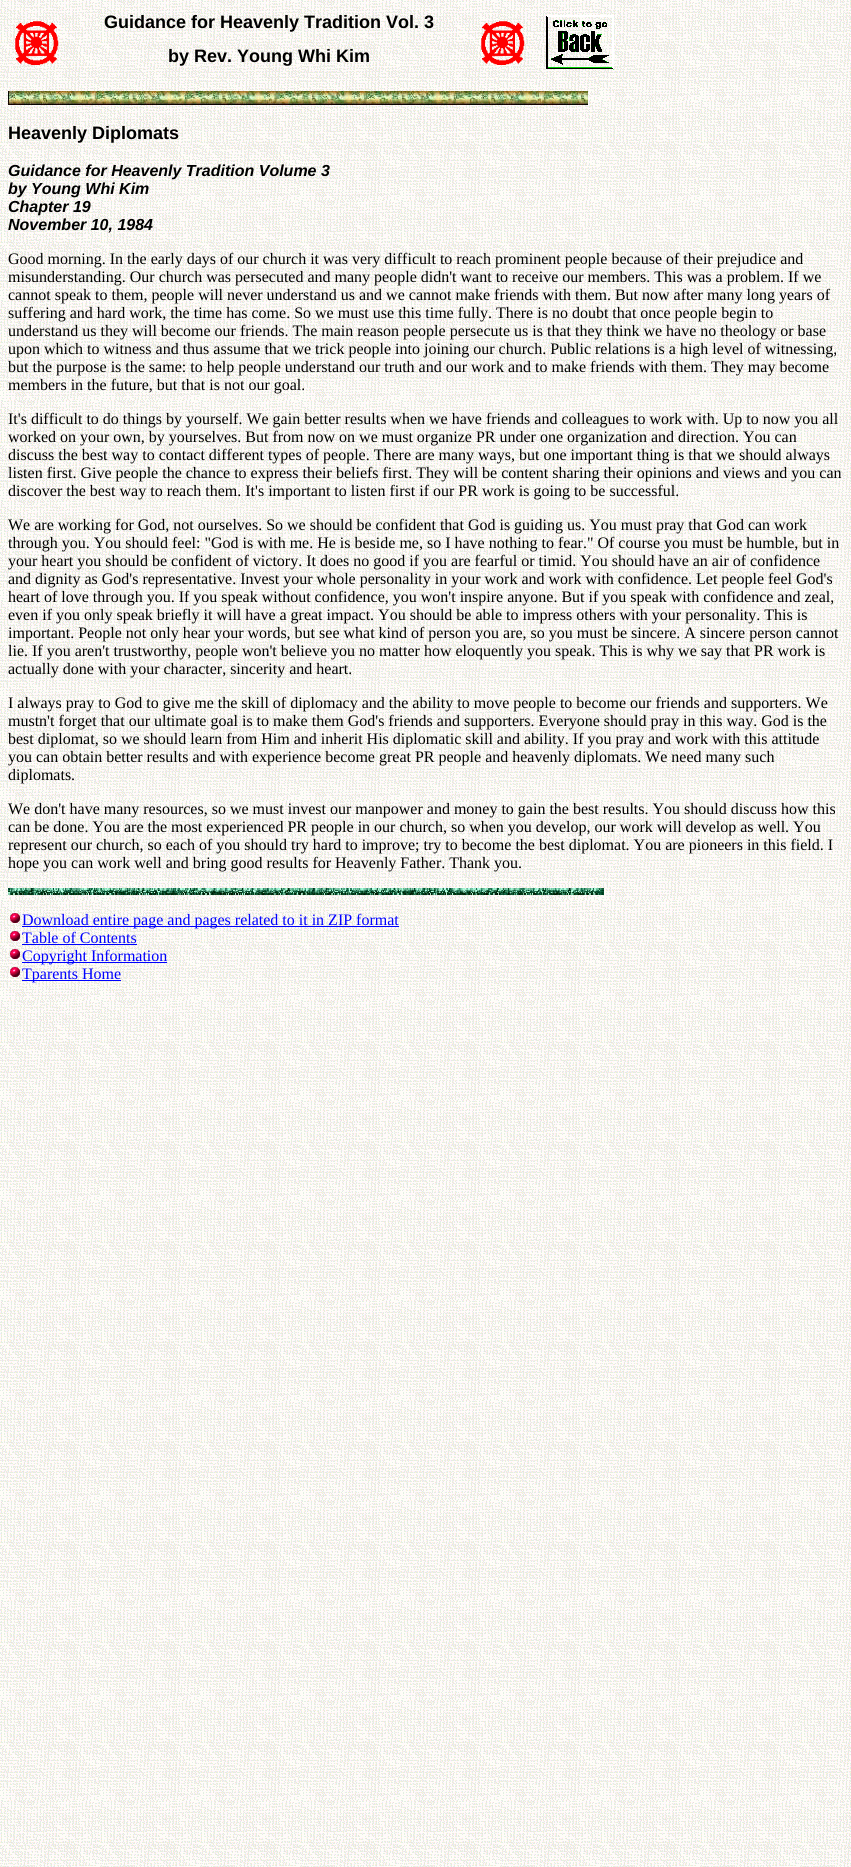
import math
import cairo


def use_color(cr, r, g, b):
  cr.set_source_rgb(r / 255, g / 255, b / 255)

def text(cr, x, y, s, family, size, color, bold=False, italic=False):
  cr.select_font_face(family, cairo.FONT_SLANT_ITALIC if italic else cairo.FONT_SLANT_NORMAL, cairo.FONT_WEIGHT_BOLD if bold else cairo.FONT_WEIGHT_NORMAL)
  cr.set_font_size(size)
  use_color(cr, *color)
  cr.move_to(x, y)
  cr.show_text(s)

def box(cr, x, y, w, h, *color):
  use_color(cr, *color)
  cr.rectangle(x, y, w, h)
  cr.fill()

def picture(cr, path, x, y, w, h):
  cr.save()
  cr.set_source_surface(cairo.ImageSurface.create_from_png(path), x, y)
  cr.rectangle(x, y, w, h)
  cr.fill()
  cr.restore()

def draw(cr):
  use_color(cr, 255, 255, 255)
  cr.paint()
  picture(cr, "img_01.png", 0, 0, 851, 1867)
  picture(cr, "img_02.png", 15, 21, 44, 44)
  picture(cr, "img_03.png", 481, 21, 44, 44)
  picture(cr, "img_04.png", 546, 15, 68, 55)
  picture(cr, "img_05.png", 8, 91, 580, 14)
  picture(cr, "img_06.png", 8, 888, 596, 7)
  picture(cr, "img_07.png", 10, 913, 10, 10)
  box(cr, 22, 926, 377, 1, 0, 0, 255)
  picture(cr, "img_08.png", 10, 931, 10, 10)
  box(cr, 22, 944, 115, 1, 0, 0, 255)
  picture(cr, "img_09.png", 10, 949, 10, 10)
  box(cr, 22, 962, 145, 1, 0, 0, 255)
  picture(cr, "img_10.png", 10, 967, 10, 10)
  box(cr, 22, 980, 99, 1, 0, 0, 255)
  text(cr, 104, 28, "Guidance for Heavenly Tradition Vol. 3", "Liberation Sans", 18, (0, 0, 0), bold=True)
  text(cr, 168, 62, "by Rev. Young Whi Kim", "Liberation Sans", 18, (0, 0, 0), bold=True)
  text(cr, 8, 139, "Heavenly Diplomats", "Liberation Sans", 18, (0, 0, 0), bold=True)
  text(cr, 8, 176, "Guidance for Heavenly Tradition Volume 3", "Liberation Sans", 16, (0, 0, 0), bold=True, italic=True)
  text(cr, 8, 194, "by Young Whi Kim", "Liberation Sans", 16, (0, 0, 0), bold=True, italic=True)
  text(cr, 8, 212, "Chapter 19", "Liberation Sans", 16, (0, 0, 0), bold=True, italic=True)
  text(cr, 8, 230, "November 10, 1984", "Liberation Sans", 16, (0, 0, 0), bold=True, italic=True)
  text(cr, 8, 264, "Good morning. In the early days of our church it was very difficult to reach prominent people because of their prejudice and", "Liberation Serif", 16, (0, 0, 0))
  text(cr, 8, 282, "misunderstanding. Our church was persecuted and many people didn't want to receive our members. This was a problem. If we", "Liberation Serif", 16, (0, 0, 0))
  text(cr, 8, 300, "cannot speak to them, people will never understand us and we cannot make friends with them. But now after many long years of", "Liberation Serif", 16, (0, 0, 0))
  text(cr, 8, 318, "suffering and hard work, the time has come. So we must use this time fully. There is no doubt that once people begin to", "Liberation Serif", 16, (0, 0, 0))
  text(cr, 8, 336, "understand us they will become our friends. The main reason people persecute us is that they think we have no theology or base", "Liberation Serif", 16, (0, 0, 0))
  text(cr, 8, 354, "upon which to witness and thus assume that we trick people into joining our church. Public relations is a high level of witnessing,", "Liberation Serif", 16, (0, 0, 0))
  text(cr, 8, 372, "but the purpose is the same: to help people understand our truth and our work and to make friends with them. They may become", "Liberation Serif", 16, (0, 0, 0))
  text(cr, 8, 390, "members in the future, but that is not our goal.", "Liberation Serif", 16, (0, 0, 0))
  text(cr, 8, 424, "It's difficult to do things by yourself. We gain better results when we have friends and colleagues to work with. Up to now you all", "Liberation Serif", 16, (0, 0, 0))
  text(cr, 8, 442, "worked on your own, by yourselves. But from now on we must organize PR under one organization and direction. You can", "Liberation Serif", 16, (0, 0, 0))
  text(cr, 8, 460, "discuss the best way to contact different types of people. There are many ways, but one important thing is that we should always", "Liberation Serif", 16, (0, 0, 0))
  text(cr, 8, 478, "listen first. Give people the chance to express their beliefs first. They will be content sharing their opinions and views and you can", "Liberation Serif", 16, (0, 0, 0))
  text(cr, 8, 496, "discover the best way to reach them. It's important to listen first if our PR work is going to be successful.", "Liberation Serif", 16, (0, 0, 0))
  text(cr, 8, 530, "We are working for God, not ourselves. So we should be confident that God is guiding us. You must pray that God can work", "Liberation Serif", 16, (0, 0, 0))
  text(cr, 8, 548, "through you. You should feel: \"God is with me. He is beside me, so I have nothing to fear.\" Of course you must be humble, but in", "Liberation Serif", 16, (0, 0, 0))
  text(cr, 8, 566, "your heart you should be confident of victory. It does no good if you are fearful or timid. You should have an air of confidence", "Liberation Serif", 16, (0, 0, 0))
  text(cr, 8, 584, "and dignity as God's representative. Invest your whole personality in your work and work with confidence. Let people feel God's", "Liberation Serif", 16, (0, 0, 0))
  text(cr, 8, 602, "heart of love through you. If you speak without confidence, you won't inspire anyone. But if you speak with confidence and zeal,", "Liberation Serif", 16, (0, 0, 0))
  text(cr, 8, 620, "even if you only speak briefly it will have a great impact. You should be able to impress others with your personality. This is", "Liberation Serif", 16, (0, 0, 0))
  text(cr, 8, 638, "important. People not only hear your words, but see what kind of person you are, so you must be sincere. A sincere person cannot", "Liberation Serif", 16, (0, 0, 0))
  text(cr, 8, 656, "lie. If you aren't trustworthy, people won't believe you no matter how eloquently you speak. This is why we say that PR work is", "Liberation Serif", 16, (0, 0, 0))
  text(cr, 8, 674, "actually done with your character, sincerity and heart.", "Liberation Serif", 16, (0, 0, 0))
  text(cr, 8, 708, "I always pray to God to give me the skill of diplomacy and the ability to move people to become our friends and supporters. We", "Liberation Serif", 16, (0, 0, 0))
  text(cr, 8, 726, "mustn't forget that our ultimate goal is to make them God's friends and supporters. Everyone should pray in this way. God is the", "Liberation Serif", 16, (0, 0, 0))
  text(cr, 8, 744, "best diplomat, so we should learn from Him and inherit His diplomatic skill and ability. If you pray and work with this attitude", "Liberation Serif", 16, (0, 0, 0))
  text(cr, 8, 762, "you can obtain better results and with experience become great PR people and heavenly diplomats. We need many such", "Liberation Serif", 16, (0, 0, 0))
  text(cr, 8, 780, "diplomats.", "Liberation Serif", 16, (0, 0, 0))
  text(cr, 8, 814, "We don't have many resources, so we must invest our manpower and money to gain the best results. You should discuss how this", "Liberation Serif", 16, (0, 0, 0))
  text(cr, 8, 832, "can be done. You are the most experienced PR people in our church, so when you develop, our work will develop as well. You", "Liberation Serif", 16, (0, 0, 0))
  text(cr, 8, 850, "represent our church, so each of you should try hard to improve; try to become the best diplomat. You are pioneers in this field. I", "Liberation Serif", 16, (0, 0, 0))
  text(cr, 8, 868, "hope you can work well and bring good results for Heavenly Father. Thank you.", "Liberation Serif", 16, (0, 0, 0))
  text(cr, 22, 925, "Download entire page and pages related to it in ZIP format", "Liberation Serif", 16, (0, 0, 255))
  text(cr, 22, 943, "Table of Contents", "Liberation Serif", 16, (0, 0, 255))
  text(cr, 22, 961, "Copyright Information", "Liberation Serif", 16, (0, 0, 255))
  text(cr, 22, 979, "Tparents Home", "Liberation Serif", 16, (0, 0, 255))


surface = cairo.ImageSurface(cairo.FORMAT_RGB24, 851, 1867)
cr = cairo.Context(surface)
options = cairo.FontOptions()
options.set_hint_metrics(cairo.HINT_METRICS_OFF)
options.set_hint_style(cairo.HINT_STYLE_NONE)
cr.set_font_options(options)
cr.set_miter_limit(4)
draw(cr)
surface.write_to_png("out.png")
